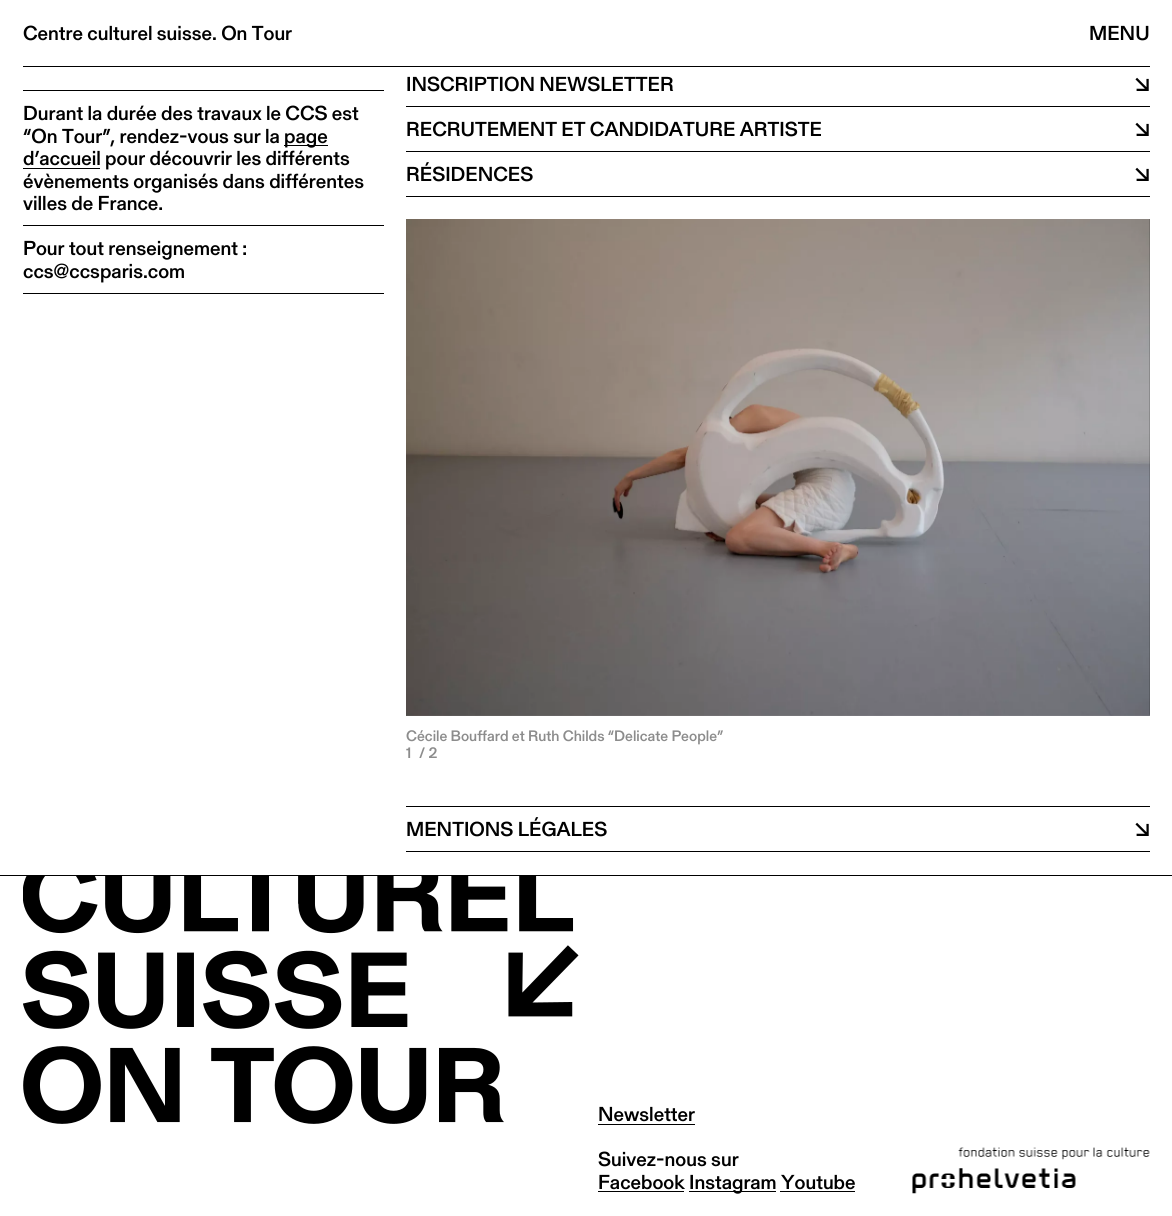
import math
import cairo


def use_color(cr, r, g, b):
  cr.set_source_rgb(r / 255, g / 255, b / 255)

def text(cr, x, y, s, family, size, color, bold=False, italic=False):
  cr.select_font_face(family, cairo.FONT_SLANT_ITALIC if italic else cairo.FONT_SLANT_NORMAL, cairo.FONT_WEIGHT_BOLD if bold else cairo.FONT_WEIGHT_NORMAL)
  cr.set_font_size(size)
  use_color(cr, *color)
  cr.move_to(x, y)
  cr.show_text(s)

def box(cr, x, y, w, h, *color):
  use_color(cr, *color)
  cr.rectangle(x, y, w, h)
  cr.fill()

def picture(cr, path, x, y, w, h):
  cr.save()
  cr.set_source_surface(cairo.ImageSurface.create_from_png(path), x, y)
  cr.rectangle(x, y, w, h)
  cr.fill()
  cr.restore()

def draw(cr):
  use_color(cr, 255, 255, 255)
  cr.paint()
  box(cr, 23, 66, 1127, 1, 0, 0, 0)
  box(cr, 0, 875, 1172, 1, 0, 0, 0)
  box(cr, 23, 90, 361, 1, 0, 0, 0)
  box(cr, 23, 225, 361, 1, 0, 0, 0)
  box(cr, 284, 145, 44, 1, 0, 0, 0)
  box(cr, 23, 168, 77, 1, 0, 0, 0)
  box(cr, 23, 293, 361, 1, 0, 0, 0)
  box(cr, 406, 106, 744, 1, 0, 0, 0)
  box(cr, 406, 151, 744, 1, 0, 0, 0)
  box(cr, 406, 196, 744, 1, 0, 0, 0)
  picture(cr, "img_01.png", 406, 219, 744, 497)
  picture(cr, "img_02.png", 1149, 219, 1, 496)
  box(cr, 406, 851, 744, 1, 0, 0, 0)
  box(cr, 406, 806, 744, 1, 0, 0, 0)
  picture(cr, "img_03.png", 23, 876, 556, 248)
  box(cr, 598, 1124, 97, 1, 0, 0, 0)
  box(cr, 598, 1191, 86, 1, 0, 0, 0)
  box(cr, 689, 1191, 87, 1, 0, 0, 0)
  box(cr, 780, 1191, 75, 1, 0, 0, 0)
  picture(cr, "img_04.png", 912, 1147, 238, 47)
  text(cr, 23, 40, "Centre culturel suisse. On Tour", "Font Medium", 20, (0, 0, 0))
  text(cr, 1089, 40, "MENU", "Font Medium", 20, (0, 0, 0))
  text(cr, 23, 120, "Durant la durée des travaux le CCS est", "Font Medium", 20, (0, 0, 0))
  text(cr, 23, 143, "“On Tour”, rendez-vous sur la", "Font Medium", 20, (0, 0, 0))
  text(cr, 284, 143, "page", "Font Medium", 20, (0, 0, 0))
  text(cr, 23, 165, "d’accueil pour découvrir les différents", "Font Medium", 20, (0, 0, 0))
  text(cr, 23, 188, "évènements organisés dans différentes", "Font Medium", 20, (0, 0, 0))
  text(cr, 23, 210, "villes de France.", "Font Medium", 20, (0, 0, 0))
  text(cr, 23, 255, "Pour tout renseignement :", "Font Medium", 20, (0, 0, 0))
  text(cr, 23, 278, "ccs@ccsparis.com", "Font Medium", 20, (0, 0, 0))
  text(cr, 406, 91, "INSCRIPTION NEWSLETTER", "Font Medium", 20, (0, 0, 0))
  text(cr, 1134, 91, "↘", "Font Medium", 20, (0, 0, 0))
  text(cr, 406, 136, "RECRUTEMENT ET CANDIDATURE ARTISTE", "Font Medium", 20, (0, 0, 0))
  text(cr, 1134, 136, "↘", "Font Medium", 20, (0, 0, 0))
  text(cr, 406, 181, "RÉSIDENCES", "Font Medium", 20, (0, 0, 0))
  text(cr, 1134, 181, "↘", "Font Medium", 20, (0, 0, 0))
  text(cr, 406, 741, "Cécile Bouffard et Ruth Childs “Delicate People”", "Font Medium", 15, (140, 140, 140))
  text(cr, 406, 758, "1", "Font Medium", 15, (140, 140, 140))
  text(cr, 419, 758, "/ 2", "Font Medium", 15, (140, 140, 140))
  text(cr, 406, 836, "MENTIONS LÉGALES", "Font Medium", 20, (0, 0, 0))
  text(cr, 1134, 836, "↘", "Font Medium", 20, (0, 0, 0))
  text(cr, 598, 1121, "Newsletter", "Font Medium", 20, (0, 0, 0))
  text(cr, 598, 1166, "Suivez-nous sur", "Font Medium", 20, (0, 0, 0))
  text(cr, 598, 1189, "Facebook", "Font Medium", 20, (0, 0, 0))
  text(cr, 689, 1189, "Instagram Youtube", "Font Medium", 20, (0, 0, 0))


surface = cairo.ImageSurface(cairo.FORMAT_RGB24, 1172, 1216)
cr = cairo.Context(surface)
options = cairo.FontOptions()
options.set_hint_metrics(cairo.HINT_METRICS_OFF)
options.set_hint_style(cairo.HINT_STYLE_NONE)
cr.set_font_options(options)
cr.set_miter_limit(4)
draw(cr)
surface.write_to_png("out.png")
